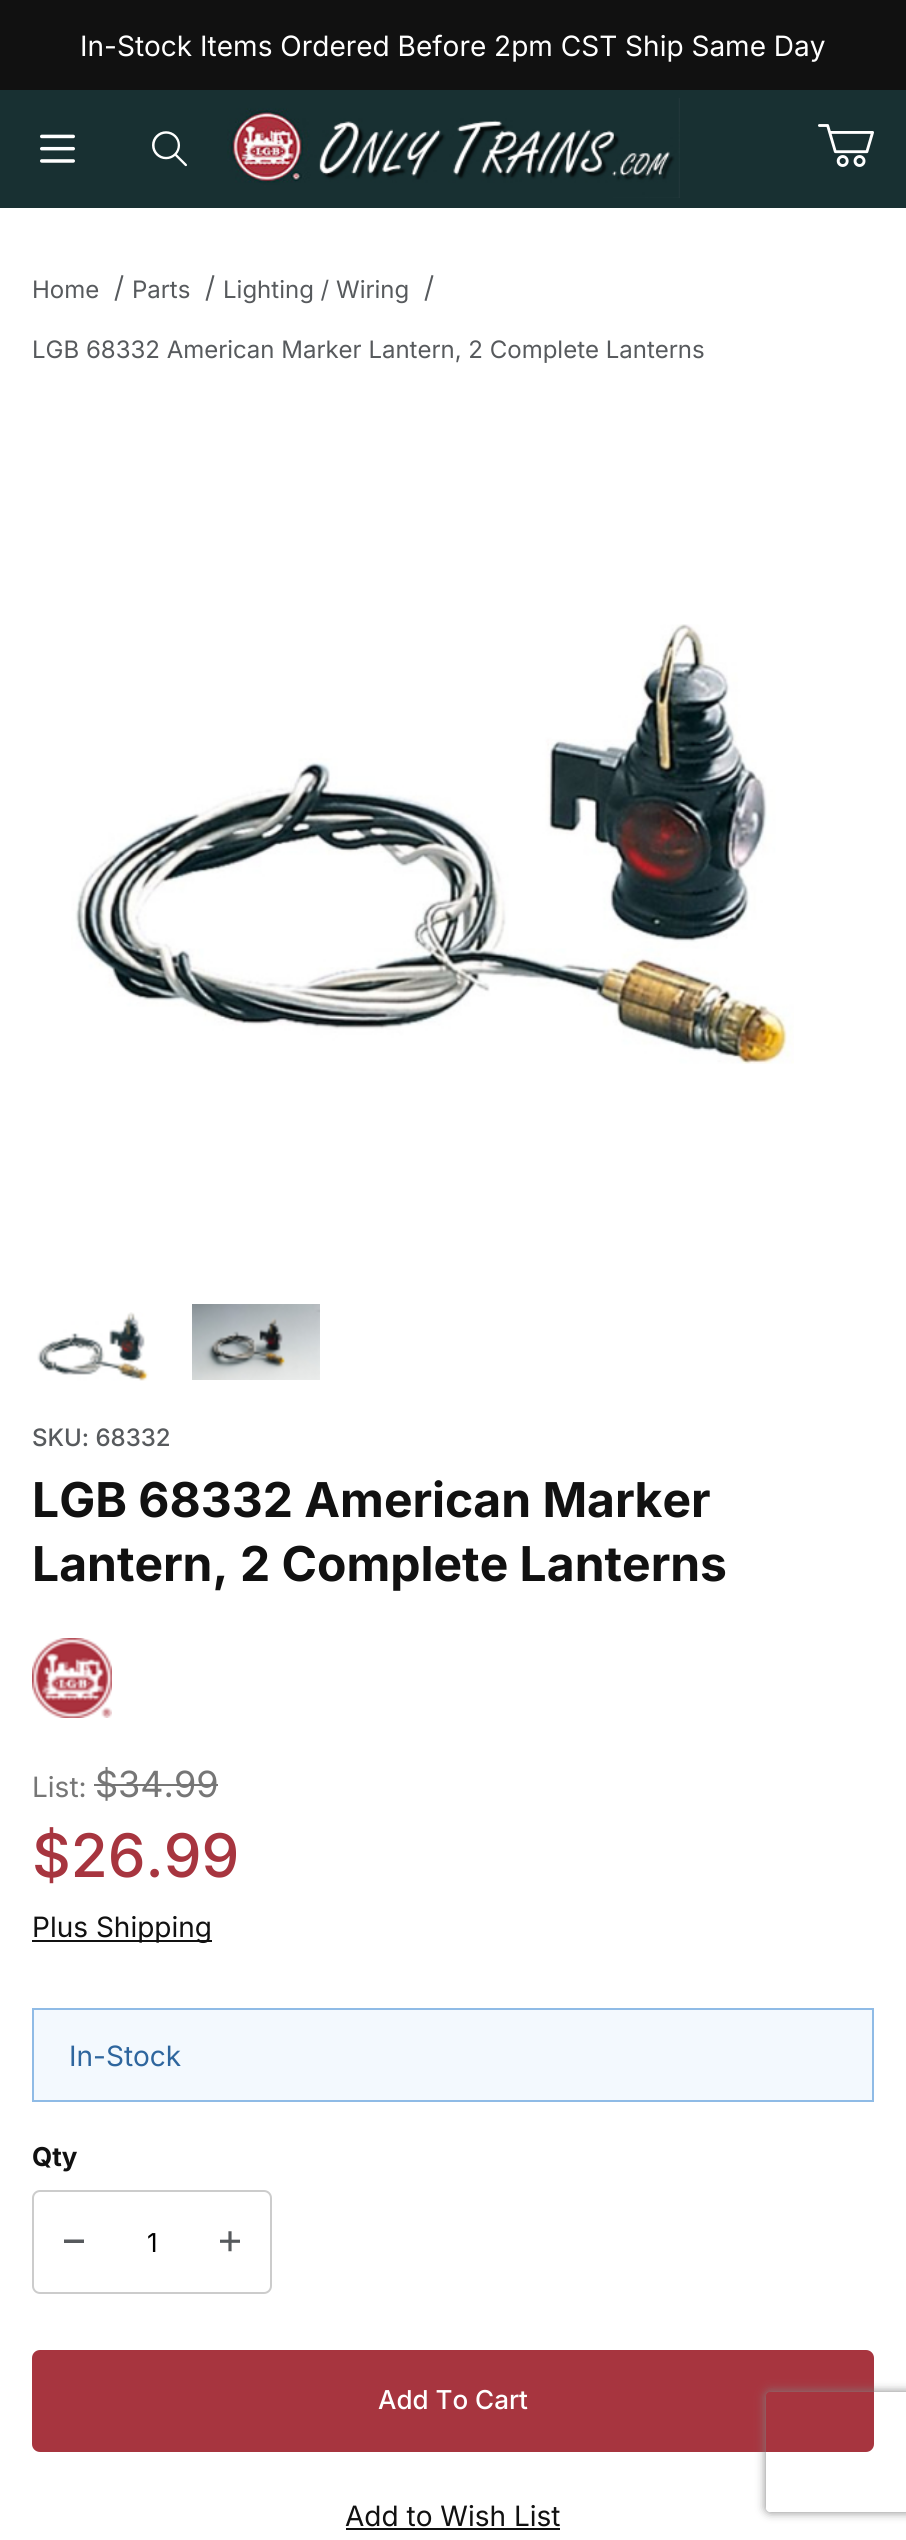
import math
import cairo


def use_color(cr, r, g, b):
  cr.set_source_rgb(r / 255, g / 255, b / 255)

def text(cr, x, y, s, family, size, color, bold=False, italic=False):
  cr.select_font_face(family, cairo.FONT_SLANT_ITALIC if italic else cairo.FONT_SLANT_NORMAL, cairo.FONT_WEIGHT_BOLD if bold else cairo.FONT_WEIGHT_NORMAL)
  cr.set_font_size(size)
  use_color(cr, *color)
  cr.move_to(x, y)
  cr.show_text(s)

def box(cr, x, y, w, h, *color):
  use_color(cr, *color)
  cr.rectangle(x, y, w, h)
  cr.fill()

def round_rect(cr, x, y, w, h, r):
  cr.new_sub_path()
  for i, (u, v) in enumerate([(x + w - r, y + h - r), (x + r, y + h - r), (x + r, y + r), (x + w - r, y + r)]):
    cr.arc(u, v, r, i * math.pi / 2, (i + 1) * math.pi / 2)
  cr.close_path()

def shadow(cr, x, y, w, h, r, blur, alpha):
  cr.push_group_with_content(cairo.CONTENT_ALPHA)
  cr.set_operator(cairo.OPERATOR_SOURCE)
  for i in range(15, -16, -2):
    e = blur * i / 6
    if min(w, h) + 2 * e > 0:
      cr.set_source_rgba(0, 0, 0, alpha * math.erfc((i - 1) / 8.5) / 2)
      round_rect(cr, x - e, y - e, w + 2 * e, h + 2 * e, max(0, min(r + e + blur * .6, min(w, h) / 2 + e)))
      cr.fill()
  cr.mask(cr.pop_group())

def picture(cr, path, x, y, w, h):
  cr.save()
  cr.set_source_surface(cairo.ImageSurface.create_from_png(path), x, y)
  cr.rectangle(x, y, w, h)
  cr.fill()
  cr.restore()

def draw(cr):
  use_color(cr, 255, 255, 255)
  cr.paint()
  box(cr, 0, 90, 906, 118, 24, 48, 50)
  box(cr, 0, 0, 906, 90, 17, 17, 17)
  picture(cr, "img_01.png", 40, 134, 35, 29)
  picture(cr, "img_02.png", 152, 131, 35, 36)
  picture(cr, "img_03.png", 227, 98, 453, 100)
  picture(cr, "img_04.png", 818, 124, 56, 43)
  use_color(cr, 87, 90, 93)
  cr.new_path()
  cr.move_to(121.5, 275)
  cr.line_to(123.5, 275.5)
  cr.line_to(116.5, 301)
  cr.line_to(114.5, 300.5)
  cr.close_path()
  cr.fill()
  cr.new_path()
  cr.move_to(212.5, 275)
  cr.line_to(214.5, 275.5)
  cr.line_to(207.5, 301)
  cr.line_to(205.5, 300.5)
  cr.close_path()
  cr.fill()
  cr.new_path()
  cr.move_to(431.5, 275)
  cr.line_to(433.5, 275.5)
  cr.line_to(426.5, 301)
  cr.line_to(424.5, 300.5)
  cr.close_path()
  cr.fill()
  picture(cr, "img_05.png", 71, 624, 723, 440)
  picture(cr, "img_06.png", 37, 1312, 112, 69)
  picture(cr, "img_07.png", 192, 1304, 128, 76)
  picture(cr, "img_08.png", 32, 1638, 80, 80)
  box(cr, 94, 1784, 124, 2, 118, 118, 118)
  box(cr, 32, 1940, 180, 2, 17, 17, 17)
  use_color(cr, 243, 249, 254)
  cr.rectangle(33, 2009, 840, 92)
  cr.fill_preserve()
  use_color(cr, 143, 187, 230)
  cr.stroke()
  round_rect(cr, 33, 2191, 238, 102, 7)
  use_color(cr, 204, 204, 204)
  cr.stroke()
  use_color(cr, 87, 90, 93)
  cr.new_path()
  cr.move_to(73, 2239.5)
  cr.line_to(64, 2239.5)
  cr.line_to(64, 2243)
  cr.line_to(84, 2243)
  cr.line_to(84, 2239.5)
  cr.close_path()
  cr.fill()
  picture(cr, "img_09.png", 220, 2231, 20, 21)
  use_color(cr, 167, 53, 63)
  round_rect(cr, 32, 2350, 842, 102, 8)
  cr.fill()
  box(cr, 346, 2528, 214, 2, 17, 17, 17)
  cr.save()
  cr.set_fill_rule(cairo.FILL_RULE_EVEN_ODD)
  cr.new_path()
  cr.move_to(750, 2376)
  cr.line_to(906, 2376)
  cr.line_to(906, 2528)
  cr.line_to(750, 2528)
  cr.close_path()
  cr.move_to(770, 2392)
  cr.line_to(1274, 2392)
  cr.curve_to(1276, 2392, 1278, 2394, 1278, 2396)
  cr.line_to(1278, 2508)
  cr.curve_to(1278, 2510, 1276, 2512, 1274, 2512)
  cr.line_to(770, 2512)
  cr.curve_to(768, 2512, 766, 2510, 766, 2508)
  cr.line_to(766, 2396)
  cr.curve_to(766, 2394, 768, 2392, 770, 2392)
  cr.close_path()
  cr.clip()
  use_color(cr, 128, 128, 128)
  shadow(cr, 766, 2392, 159, 120, 4, 5, 1)
  cr.restore()
  text(cr, 80, 56, "In-Stock Items Ordered Before 2pm CST Ship Same Day", "Inter", 28, (255, 255, 255))
  text(cr, 32, 298, "Home", "Inter", 24, (87, 90, 93))
  text(cr, 132, 298, "Parts", "Inter", 24, (87, 90, 93))
  text(cr, 223, 298, "Lighting / Wiring", "Inter", 24, (87, 90, 93))
  text(cr, 32, 358, "LGB 68332 American Marker Lantern, 2 Complete Lanterns", "Inter", 24, (87, 90, 93))
  text(cr, 32, 1446, "SKU: 68332", "Inter Medium", 24, (87, 90, 93))
  text(cr, 32, 1517, "LGB 68332 American Marker", "Inter", 48, (17, 17, 17), bold=True)
  text(cr, 32, 1581, "Lantern, 2 Complete Lanterns", "Inter", 48, (17, 17, 17), bold=True)
  text(cr, 32, 1797, "List:", "Inter", 28, (118, 118, 118))
  text(cr, 95, 1797, "$34.99", "Inter", 36, (118, 118, 118))
  text(cr, 32, 1877, "$26.99", "Inter Medium", 60, (167, 53, 63))
  text(cr, 32, 1937, "Plus Shipping", "Inter", 28, (17, 17, 17))
  text(cr, 69, 2066, "In-Stock", "Inter", 28, (46, 102, 158))
  text(cr, 32, 2166, "Qty", "Inter", 26, (17, 17, 17), bold=True)
  text(cr, 147, 2252, "1", "Inter", 26, (0, 0, 0))
  text(cr, 378, 2409, "Add To Cart", "Inter Medium", 26, (255, 255, 255))
  text(cr, 345, 2526, "Add to Wish List", "Inter", 28, (17, 17, 17))


surface = cairo.ImageSurface(cairo.FORMAT_RGB24, 906, 2540)
cr = cairo.Context(surface)
options = cairo.FontOptions()
options.set_hint_metrics(cairo.HINT_METRICS_OFF)
options.set_hint_style(cairo.HINT_STYLE_NONE)
cr.set_font_options(options)
cr.set_miter_limit(4)
draw(cr)
surface.write_to_png("out.png")
